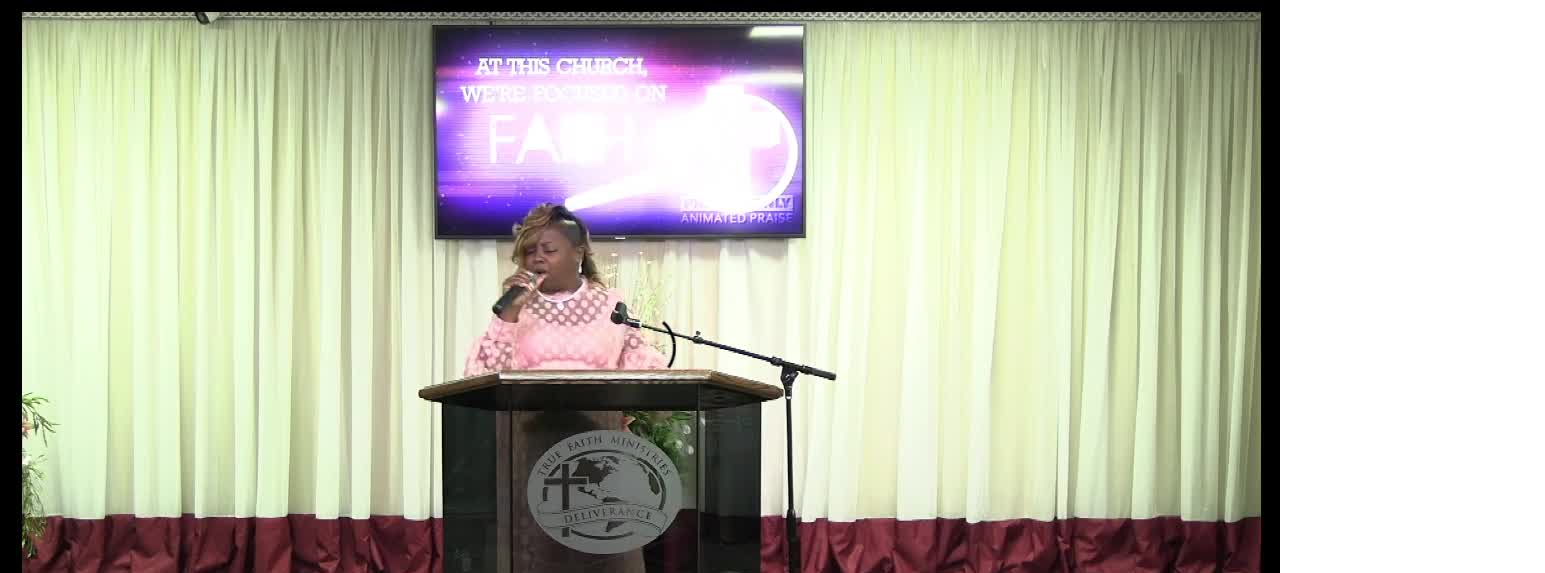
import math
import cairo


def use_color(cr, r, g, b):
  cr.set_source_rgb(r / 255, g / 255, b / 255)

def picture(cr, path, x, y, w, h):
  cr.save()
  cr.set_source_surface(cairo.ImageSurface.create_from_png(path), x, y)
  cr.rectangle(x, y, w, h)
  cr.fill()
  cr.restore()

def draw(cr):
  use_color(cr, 255, 255, 255)
  cr.paint()
  picture(cr, "img_01.png", 0, 0, 1280, 573)


surface = cairo.ImageSurface(cairo.FORMAT_RGB24, 1545, 573)
cr = cairo.Context(surface)
options = cairo.FontOptions()
options.set_hint_metrics(cairo.HINT_METRICS_OFF)
options.set_hint_style(cairo.HINT_STYLE_NONE)
cr.set_font_options(options)
cr.set_miter_limit(4)
draw(cr)
surface.write_to_png("out.png")
